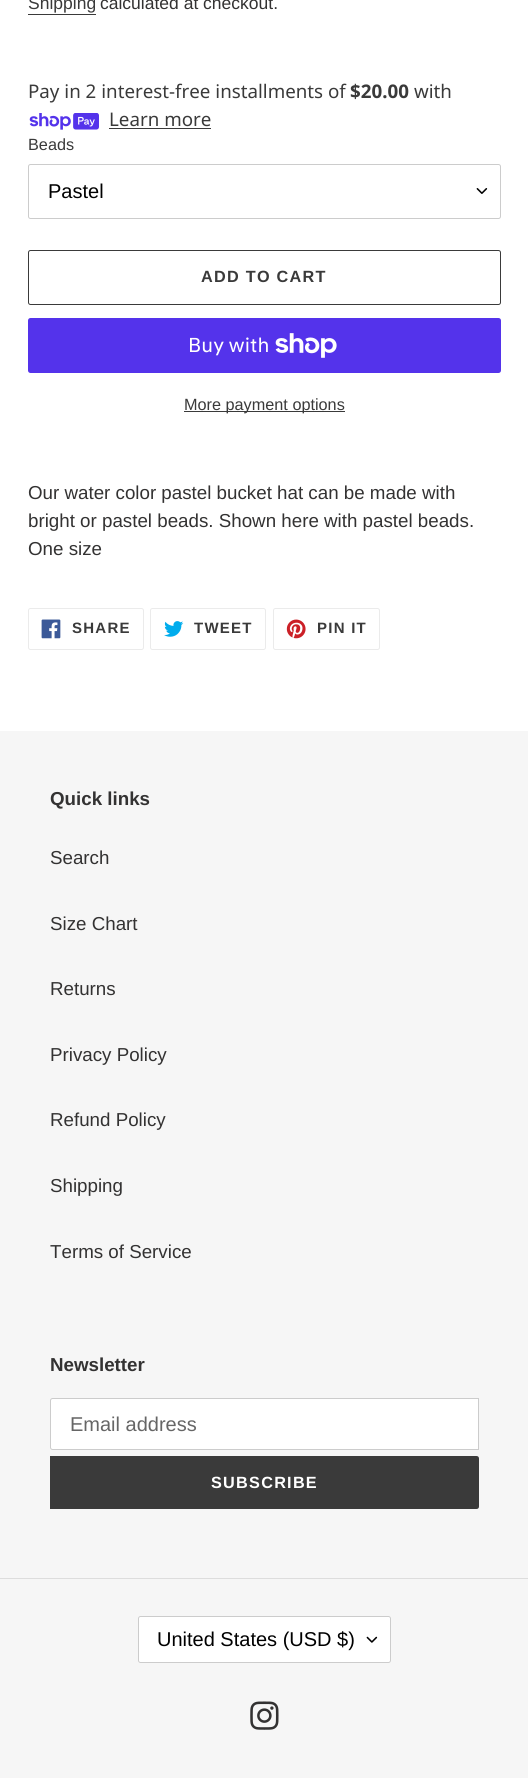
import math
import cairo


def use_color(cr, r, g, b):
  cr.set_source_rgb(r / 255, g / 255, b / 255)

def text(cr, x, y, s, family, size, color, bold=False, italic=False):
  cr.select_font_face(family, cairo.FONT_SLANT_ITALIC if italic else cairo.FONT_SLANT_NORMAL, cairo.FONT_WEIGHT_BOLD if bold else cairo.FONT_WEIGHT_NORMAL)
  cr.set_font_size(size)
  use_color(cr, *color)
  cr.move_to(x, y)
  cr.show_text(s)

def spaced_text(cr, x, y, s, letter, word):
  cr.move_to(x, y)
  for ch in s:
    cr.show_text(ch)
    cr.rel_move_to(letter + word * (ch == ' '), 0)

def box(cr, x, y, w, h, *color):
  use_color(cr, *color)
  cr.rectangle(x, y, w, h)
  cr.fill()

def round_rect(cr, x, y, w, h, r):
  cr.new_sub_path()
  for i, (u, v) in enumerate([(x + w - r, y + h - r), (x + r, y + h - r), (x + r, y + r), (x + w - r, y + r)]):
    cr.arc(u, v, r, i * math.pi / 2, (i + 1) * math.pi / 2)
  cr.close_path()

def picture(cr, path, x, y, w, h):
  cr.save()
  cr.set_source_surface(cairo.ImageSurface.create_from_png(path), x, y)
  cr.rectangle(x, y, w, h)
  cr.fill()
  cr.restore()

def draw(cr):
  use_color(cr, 255, 255, 255)
  cr.paint()
  box(cr, 28, 14, 68, 1, 58, 58, 58)
  picture(cr, "img_01.png", 29, 113, 70, 17)
  box(cr, 109, 128, 102, 1, 58, 58, 58)
  picture(cr, "img_02.png", 476, 188, 12, 6)
  round_rect(cr, 28.5, 164.5, 472, 54, 2)
  use_color(cr, 204, 204, 204)
  cr.set_line_width(1)
  cr.stroke()
  round_rect(cr, 28.5, 250.5, 472, 54, 2)
  use_color(cr, 58, 58, 58)
  cr.stroke()
  use_color(cr, 84, 51, 235)
  round_rect(cr, 28, 318, 473, 55, 2.5)
  cr.fill()
  picture(cr, "img_03.png", 275, 333, 62, 25)
  box(cr, 184, 411, 161, 1, 58, 58, 58)
  round_rect(cr, 28.5, 608.5, 115, 41, 2)
  use_color(cr, 235, 235, 235)
  cr.stroke()
  picture(cr, "img_04.png", 41, 619, 20, 20)
  round_rect(cr, 150.5, 608.5, 115, 41, 2)
  cr.stroke()
  picture(cr, "img_05.png", 164, 621, 20, 16)
  round_rect(cr, 273.5, 608.5, 106, 41, 2)
  cr.stroke()
  picture(cr, "img_06.png", 286, 619, 20, 20)
  box(cr, 0, 731, 528, 1047, 246, 246, 246)
  use_color(cr, 255, 255, 255)
  cr.new_path()
  cr.move_to(52.5, 1398.5)
  cr.line_to(478.5, 1398.5)
  cr.line_to(478.5, 1449.5)
  cr.line_to(52.5, 1449.5)
  cr.curve_to(51.5, 1449.5, 50.5, 1448.5, 50.5, 1447.5)
  cr.line_to(50.5, 1400.5)
  cr.curve_to(50.5, 1399.5, 51.5, 1398.5, 52.5, 1398.5)
  cr.close_path()
  cr.fill_preserve()
  use_color(cr, 204, 204, 204)
  cr.stroke()
  use_color(cr, 58, 58, 58)
  cr.new_path()
  cr.move_to(50, 1456)
  cr.line_to(476.5, 1456)
  cr.curve_to(478, 1456, 479, 1457, 479, 1458.5)
  cr.line_to(479, 1506.5)
  cr.curve_to(479, 1508, 478, 1509, 476.5, 1509)
  cr.line_to(50, 1509)
  cr.close_path()
  cr.fill()
  box(cr, 0, 1578, 528, 1, 221, 221, 221)
  use_color(cr, 255, 255, 255)
  round_rect(cr, 138, 1616, 253, 47, 2.5)
  cr.fill()
  picture(cr, "img_07.png", 366, 1636, 12, 7)
  round_rect(cr, 138.5, 1616.5, 252, 46, 2)
  use_color(cr, 204, 204, 204)
  cr.stroke()
  picture(cr, "img_08.png", 250, 1701, 29, 29)
  text(cr, 28, 9, "Shipping", "Liberation Sans", 17.5, (58, 58, 58))
  text(cr, 100, 9, "calculated at checkout.", "Liberation Sans", 17.5, (51, 50, 50))
  text(cr, 28, 98, "Pay in 2 interest-free installments of", "Noto Sans", 18.75, (58, 58, 58))
  text(cr, 350, 98, "$20.00", "Noto Sans", 18.75, (58, 58, 58), bold=True)
  text(cr, 414, 98, "with", "Noto Sans", 18.75, (58, 58, 58))
  text(cr, 109, 126, "Learn more", "Noto Sans", 18.75, (58, 58, 58))
  text(cr, 28, 150, "Beads", "Liberation Sans", 16.25, (58, 58, 58))
  text(cr, 48, 198, "Pastel", "Liberation Sans", 20, (0, 0, 0))
  cr.select_font_face("Liberation Sans", cairo.FONT_SLANT_NORMAL, cairo.FONT_WEIGHT_BOLD)
  cr.set_font_size(16.25)
  use_color(cr, 58, 58, 58)
  spaced_text(cr, 201, 282, "ADD TO CART", 1.25, 0)
  text(cr, 188, 352, "Buy with", "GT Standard", 20, (255, 255, 255))
  text(cr, 184, 410, "More payment options", "Liberation Sans", 16.25, (58, 58, 58))
  text(cr, 28, 499, "Our water color pastel bucket hat can be made with", "Liberation Sans", 18.75, (51, 50, 50))
  text(cr, 28, 527, "bright or pastel beads. Shown here with pastel beads.", "Liberation Sans", 18.75, (51, 50, 50))
  text(cr, 28, 555, "One size", "Liberation Sans", 18.75, (51, 50, 50))
  cr.select_font_face("Liberation Sans", cairo.FONT_SLANT_NORMAL, cairo.FONT_WEIGHT_BOLD)
  cr.set_font_size(15)
  use_color(cr, 58, 58, 58)
  spaced_text(cr, 72, 633, "SHARE", 1.25, 0)
  spaced_text(cr, 194, 633, "TWEET", 1.25, 0)
  spaced_text(cr, 317, 633, "PIN IT", 1.25, 0)
  text(cr, 50, 805, "Quick links", "Liberation Sans", 18.75, (51, 50, 50), bold=True)
  text(cr, 50, 864, "Search", "Liberation Sans", 18.75, (51, 50, 50))
  text(cr, 50, 930, "Size Chart", "Liberation Sans", 18.75, (51, 50, 50))
  text(cr, 50, 995, "Returns", "Liberation Sans", 18.75, (51, 50, 50))
  text(cr, 50, 1061, "Privacy Policy", "Liberation Sans", 18.75, (51, 50, 50))
  text(cr, 50, 1126, "Refund Policy", "Liberation Sans", 18.75, (51, 50, 50))
  text(cr, 50, 1192, "Shipping", "Liberation Sans", 18.75, (51, 50, 50))
  text(cr, 50, 1258, "Terms of Service", "Liberation Sans", 18.75, (51, 50, 50))
  text(cr, 50, 1371, "Newsletter", "Liberation Sans", 18.75, (51, 50, 50), bold=True)
  text(cr, 70, 1431, "Email address", "Liberation Sans", 20, (102, 102, 102))
  cr.select_font_face("Liberation Sans", cairo.FONT_SLANT_NORMAL, cairo.FONT_WEIGHT_BOLD)
  cr.set_font_size(16.25)
  use_color(cr, 255, 255, 255)
  spaced_text(cr, 211, 1488, "SUBSCRIBE", 1.25, 0)
  text(cr, 157, 1646, "United States (USD $)", "Liberation Sans", 20, (0, 0, 0))


surface = cairo.ImageSurface(cairo.FORMAT_RGB24, 528, 1778)
cr = cairo.Context(surface)
options = cairo.FontOptions()
options.set_hint_metrics(cairo.HINT_METRICS_OFF)
options.set_hint_style(cairo.HINT_STYLE_NONE)
cr.set_font_options(options)
cr.set_miter_limit(4)
draw(cr)
surface.write_to_png("out.png")
